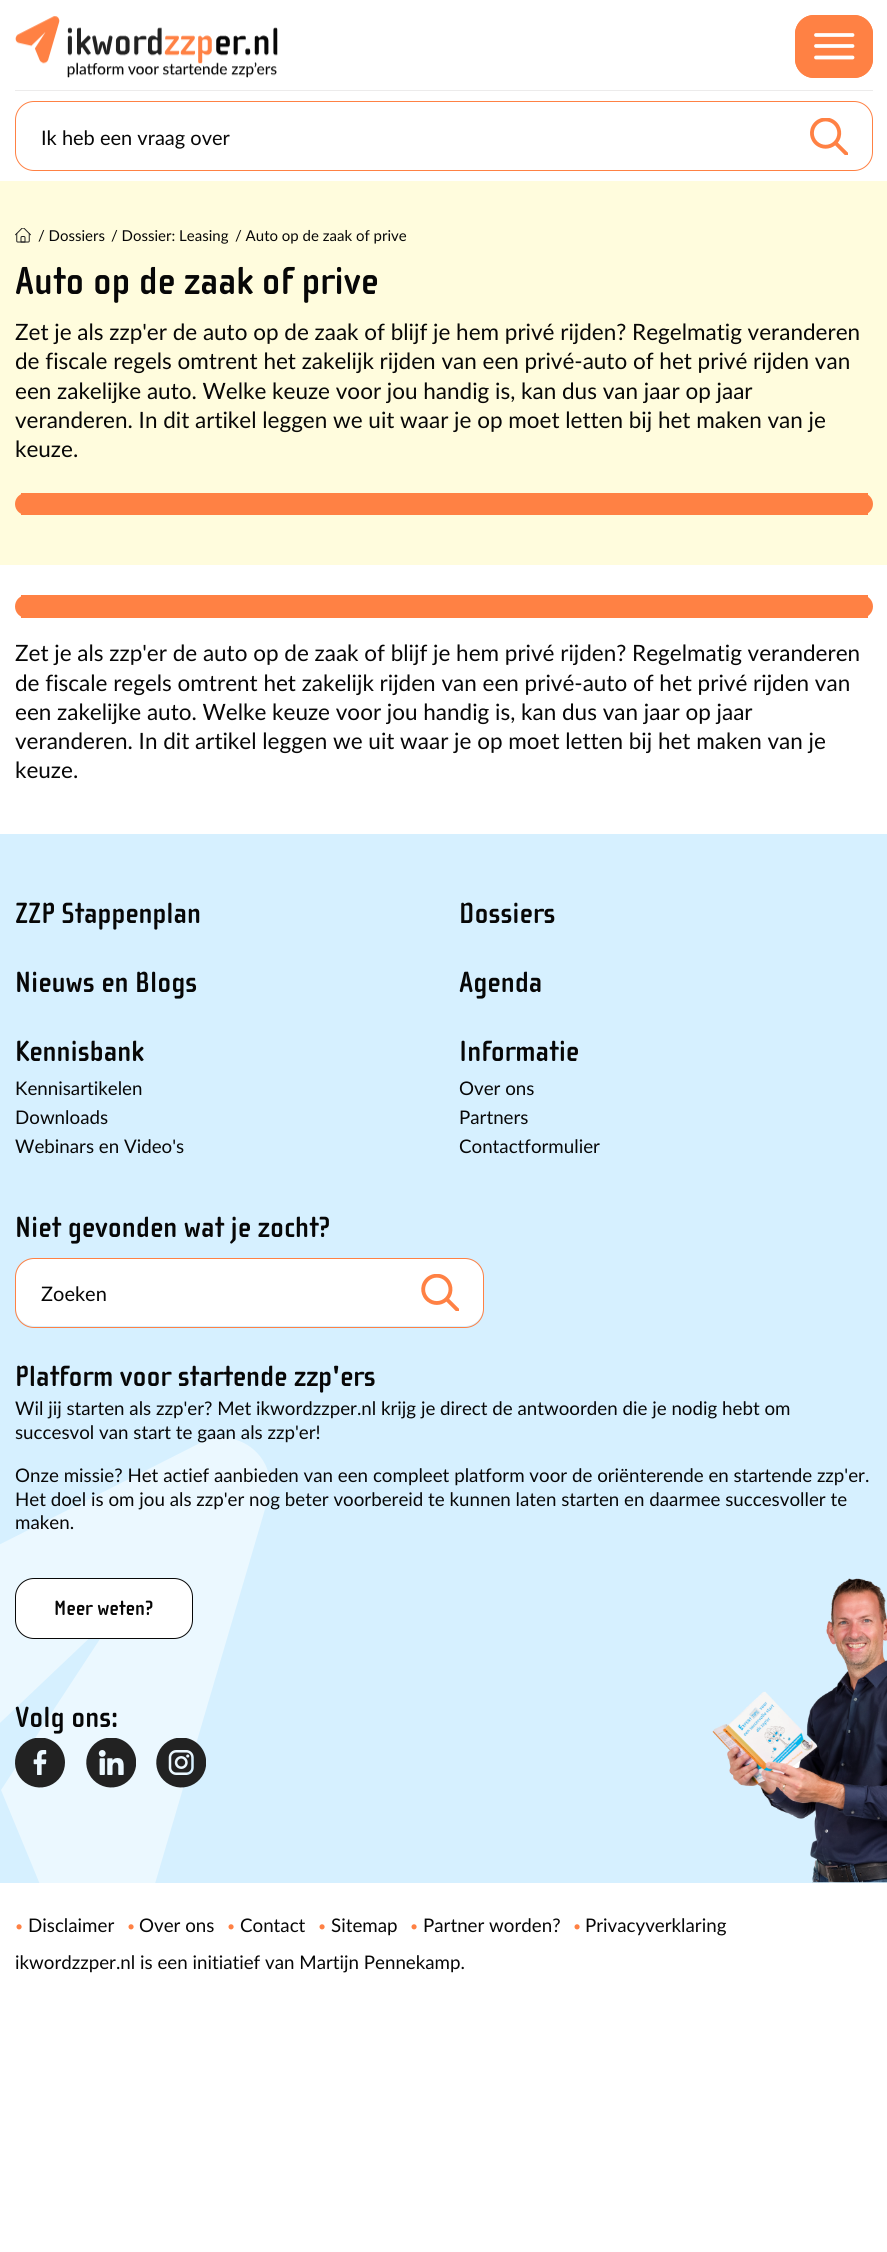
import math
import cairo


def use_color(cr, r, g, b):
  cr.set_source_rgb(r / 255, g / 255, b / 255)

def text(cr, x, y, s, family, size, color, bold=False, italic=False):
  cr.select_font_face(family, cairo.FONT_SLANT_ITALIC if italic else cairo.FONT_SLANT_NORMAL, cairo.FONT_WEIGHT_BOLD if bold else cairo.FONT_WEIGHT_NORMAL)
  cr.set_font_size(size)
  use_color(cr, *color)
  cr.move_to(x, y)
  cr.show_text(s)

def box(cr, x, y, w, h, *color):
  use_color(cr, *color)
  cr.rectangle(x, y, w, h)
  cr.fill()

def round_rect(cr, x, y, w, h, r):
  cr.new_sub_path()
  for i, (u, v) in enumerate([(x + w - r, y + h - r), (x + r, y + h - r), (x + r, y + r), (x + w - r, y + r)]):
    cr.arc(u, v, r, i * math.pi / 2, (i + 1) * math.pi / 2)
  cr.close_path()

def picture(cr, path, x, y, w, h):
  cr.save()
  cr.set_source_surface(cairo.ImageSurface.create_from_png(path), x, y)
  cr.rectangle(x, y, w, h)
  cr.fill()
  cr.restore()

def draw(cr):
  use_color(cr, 255, 255, 255)
  cr.paint()
  picture(cr, "img_01.png", 15, 16, 263, 62)
  use_color(cr, 255, 129, 68)
  round_rect(cr, 795, 15, 78, 63, 19)
  cr.fill()
  cr.new_path()
  cr.move_to(816, 35)
  cr.line_to(852.5, 35)
  cr.move_to(816, 46)
  cr.line_to(852.5, 46)
  cr.move_to(816, 57.5)
  cr.line_to(852.5, 57.5)
  use_color(cr, 255, 255, 255)
  cr.set_line_width(3.8)
  cr.set_line_cap(cairo.LINE_CAP_ROUND)
  cr.stroke()
  round_rect(cr, 795.5, 15.5, 77, 62, 18.5)
  use_color(cr, 255, 129, 68)
  cr.set_line_width(1)
  cr.set_line_cap(cairo.LINE_CAP_BUTT)
  cr.stroke()
  box(cr, 15, 90, 858, 1, 236, 235, 235)
  round_rect(cr, 15.5, 101.5, 857, 69, 18.5)
  use_color(cr, 255, 129, 68)
  cr.stroke()
  picture(cr, "img_02.png", 810, 118, 38, 37)
  box(cr, 0, 181, 887, 384, 255, 252, 221)
  picture(cr, "img_03.png", 15, 228, 16, 15)
  use_color(cr, 255, 129, 68)
  round_rect(cr, 15, 493, 858, 22, 11)
  cr.fill()
  box(cr, 21, 493, 847, 22, 255, 129, 68)
  round_rect(cr, 15, 595, 858, 23, 11.5)
  cr.fill()
  box(cr, 21, 595, 847, 23, 255, 129, 68)
  box(cr, 0, 834, 887, 1049, 214, 240, 255)
  picture(cr, "img_04.png", 712, 1578, 175, 305)
  use_color(cr, 255, 255, 255)
  round_rect(cr, 16, 1259, 467, 67, 18)
  cr.fill()
  round_rect(cr, 15.5, 1258.5, 468, 69, 18.5)
  use_color(cr, 255, 129, 68)
  cr.stroke()
  picture(cr, "img_05.png", 421, 1274, 38, 37)
  cr.save()
  cr.rectangle(0, 1414, 270, 469)
  cr.clip()
  use_color(cr, 235, 248, 255)
  cr.new_path()
  cr.move_to(-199, 1650)
  cr.curve_to(-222, 1679, -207, 1722, -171, 1730)
  cr.line_to(-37, 1758)
  cr.line_to(119, 1610)
  cr.line_to(1, 1790)
  cr.line_to(53, 1916)
  cr.curve_to(68, 1950, 114, 1957, 138, 1928)
  cr.curve_to(142, 1923, 145, 1917, 147, 1911)
  cr.line_to(268, 1499)
  cr.curve_to(280, 1459, 238, 1424, 200, 1443)
  cr.line_to(-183, 1637)
  cr.curve_to(-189, 1640, -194, 1645, -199, 1650)
  cr.close_path()
  cr.fill()
  cr.restore()
  use_color(cr, 255, 255, 255)
  round_rect(cr, 15.5, 1578.5, 177, 60, 18.5)
  cr.fill_preserve()
  use_color(cr, 7, 7, 7)
  cr.stroke()
  picture(cr, "img_06.png", 15, 1738, 50, 50)
  picture(cr, "img_07.png", 86, 1738, 50, 50)
  picture(cr, "img_08.png", 156, 1738, 50, 50)
  text(cr, 41, 145, "Ik heb een vraag over", "Lato", 20, (7, 7, 7))
  text(cr, 38, 241, "/ Dossiers", "Lato", 15, (7, 7, 7))
  text(cr, 111, 241, "/ Dossier: Leasing", "Lato", 15, (7, 7, 7))
  text(cr, 235, 241, "/ Auto op de zaak of prive", "Lato", 15, (7, 7, 7))
  text(cr, 15, 294, "Auto op de zaak of prive", "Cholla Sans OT", 40, (7, 7, 7), bold=True)
  text(cr, 15, 340, "Zet je als zzp'er de auto op de zaak of blijf je hem privé rijden? Regelmatig veranderen", "Lato", 22.5, (7, 7, 7))
  text(cr, 15, 369, "de fiscale regels omtrent het zakelijk rijden van een privé-auto of het privé rijden van", "Lato", 22.5, (7, 7, 7))
  text(cr, 15, 399, "een zakelijke auto. Welke keuze voor jou handig is, kan dus van jaar op jaar", "Lato", 22.5, (7, 7, 7))
  text(cr, 15, 428, "veranderen. In dit artikel leggen we uit waar je op moet letten bij het maken van je", "Lato", 22.5, (7, 7, 7))
  text(cr, 15, 457, "keuze.", "Lato", 22.5, (7, 7, 7))
  text(cr, 15, 661, "Zet je als zzp'er de auto op de zaak of blijf je hem privé rijden? Regelmatig veranderen", "Lato", 22.5, (7, 7, 7))
  text(cr, 15, 691, "de fiscale regels omtrent het zakelijk rijden van een privé-auto of het privé rijden van", "Lato", 22.5, (7, 7, 7))
  text(cr, 15, 720, "een zakelijke auto. Welke keuze voor jou handig is, kan dus van jaar op jaar", "Lato", 22.5, (7, 7, 7))
  text(cr, 15, 749, "veranderen. In dit artikel leggen we uit waar je op moet letten bij het maken van je", "Lato", 22.5, (7, 7, 7))
  text(cr, 15, 778, "keuze.", "Lato", 22.5, (7, 7, 7))
  text(cr, 15, 923, "ZZP Stappenplan", "Cholla Sans OT", 30, (7, 7, 7), bold=True)
  text(cr, 15, 992, "Nieuws en Blogs", "Cholla Sans OT", 30, (7, 7, 7), bold=True)
  text(cr, 15, 1061, "Kennisbank", "Cholla Sans OT", 30, (7, 7, 7), bold=True)
  text(cr, 15, 1095, "Kennisartikelen", "Lato", 18.75, (7, 7, 7))
  text(cr, 15, 1124, "Downloads", "Lato", 18.75, (7, 7, 7))
  text(cr, 15, 1153, "Webinars en Video's", "Lato", 18.75, (7, 7, 7))
  text(cr, 459, 923, "Dossiers", "Cholla Sans OT", 30, (7, 7, 7), bold=True)
  text(cr, 459, 992, "Agenda", "Cholla Sans OT", 30, (7, 7, 7), bold=True)
  text(cr, 459, 1061, "Informatie", "Cholla Sans OT", 30, (7, 7, 7), bold=True)
  text(cr, 459, 1095, "Over ons", "Lato", 18.75, (7, 7, 7))
  text(cr, 459, 1124, "Partners", "Lato", 18.75, (7, 7, 7))
  text(cr, 459, 1153, "Contactformulier", "Lato", 18.75, (7, 7, 7))
  text(cr, 15, 1237, "Niet gevonden wat je zocht?", "Cholla Sans OT", 30, (7, 7, 7), bold=True)
  text(cr, 41, 1301, "Zoeken", "Lato", 20, (7, 7, 7))
  text(cr, 15, 1386, "Platform voor startende zzp'ers", "Cholla Sans OT", 30, (7, 7, 7), bold=True)
  text(cr, 15, 1415, "Wil jij starten als zzp'er? Met ikwordzzper.nl krijg je direct de antwoorden die je nodig hebt om", "Lato", 18.75, (7, 7, 7))
  text(cr, 15, 1439, "succesvol van start te gaan als zzp'er!", "Lato", 18.75, (7, 7, 7))
  text(cr, 15, 1482, "Onze missie? Het actief aanbieden van een compleet platform voor de oriënterende en startende zzp'er.", "Lato", 18.75, (7, 7, 7))
  text(cr, 15, 1506, "Het doel is om jou als zzp'er nog beter voorbereid te kunnen laten starten en daarmee succesvoller te", "Lato", 18.75, (7, 7, 7))
  text(cr, 15, 1529, "maken.", "Lato", 18.75, (7, 7, 7))
  text(cr, 54, 1615, "Meer weten?", "Cholla Sans OT", 21.25, (7, 7, 7), bold=True)
  text(cr, 15, 1727, "Volg ons:", "Cholla Sans OT", 30, (7, 7, 7), bold=True)
  text(cr, 15, 1931, "•", "Lato", 14, (255, 129, 68))
  text(cr, 28, 1932, "Disclaimer", "Lato", 18.75, (7, 7, 7))
  text(cr, 127, 1931, "•", "Lato", 14, (255, 129, 68))
  text(cr, 139, 1932, "Over ons", "Lato", 18.75, (7, 7, 7))
  text(cr, 227, 1931, "•", "Lato", 14, (255, 129, 68))
  text(cr, 240, 1932, "Contact", "Lato", 18.75, (7, 7, 7))
  text(cr, 318, 1931, "•", "Lato", 14, (255, 129, 68))
  text(cr, 331, 1932, "Sitemap", "Lato", 18.75, (7, 7, 7))
  text(cr, 410, 1931, "•", "Lato", 14, (255, 129, 68))
  text(cr, 423, 1932, "Partner worden?", "Lato", 18.75, (7, 7, 7))
  text(cr, 573, 1931, "•", "Lato", 14, (255, 129, 68))
  text(cr, 585, 1932, "Privacyverklaring", "Lato", 18.75, (7, 7, 7))
  text(cr, 15, 1969, "ikwordzzper.nl is een initiatief van Martijn Pennekamp.", "Lato", 18.75, (7, 7, 7))


surface = cairo.ImageSurface(cairo.FORMAT_RGB24, 887, 2252)
cr = cairo.Context(surface)
options = cairo.FontOptions()
options.set_hint_metrics(cairo.HINT_METRICS_OFF)
options.set_hint_style(cairo.HINT_STYLE_NONE)
cr.set_font_options(options)
cr.set_miter_limit(4)
draw(cr)
surface.write_to_png("out.png")
